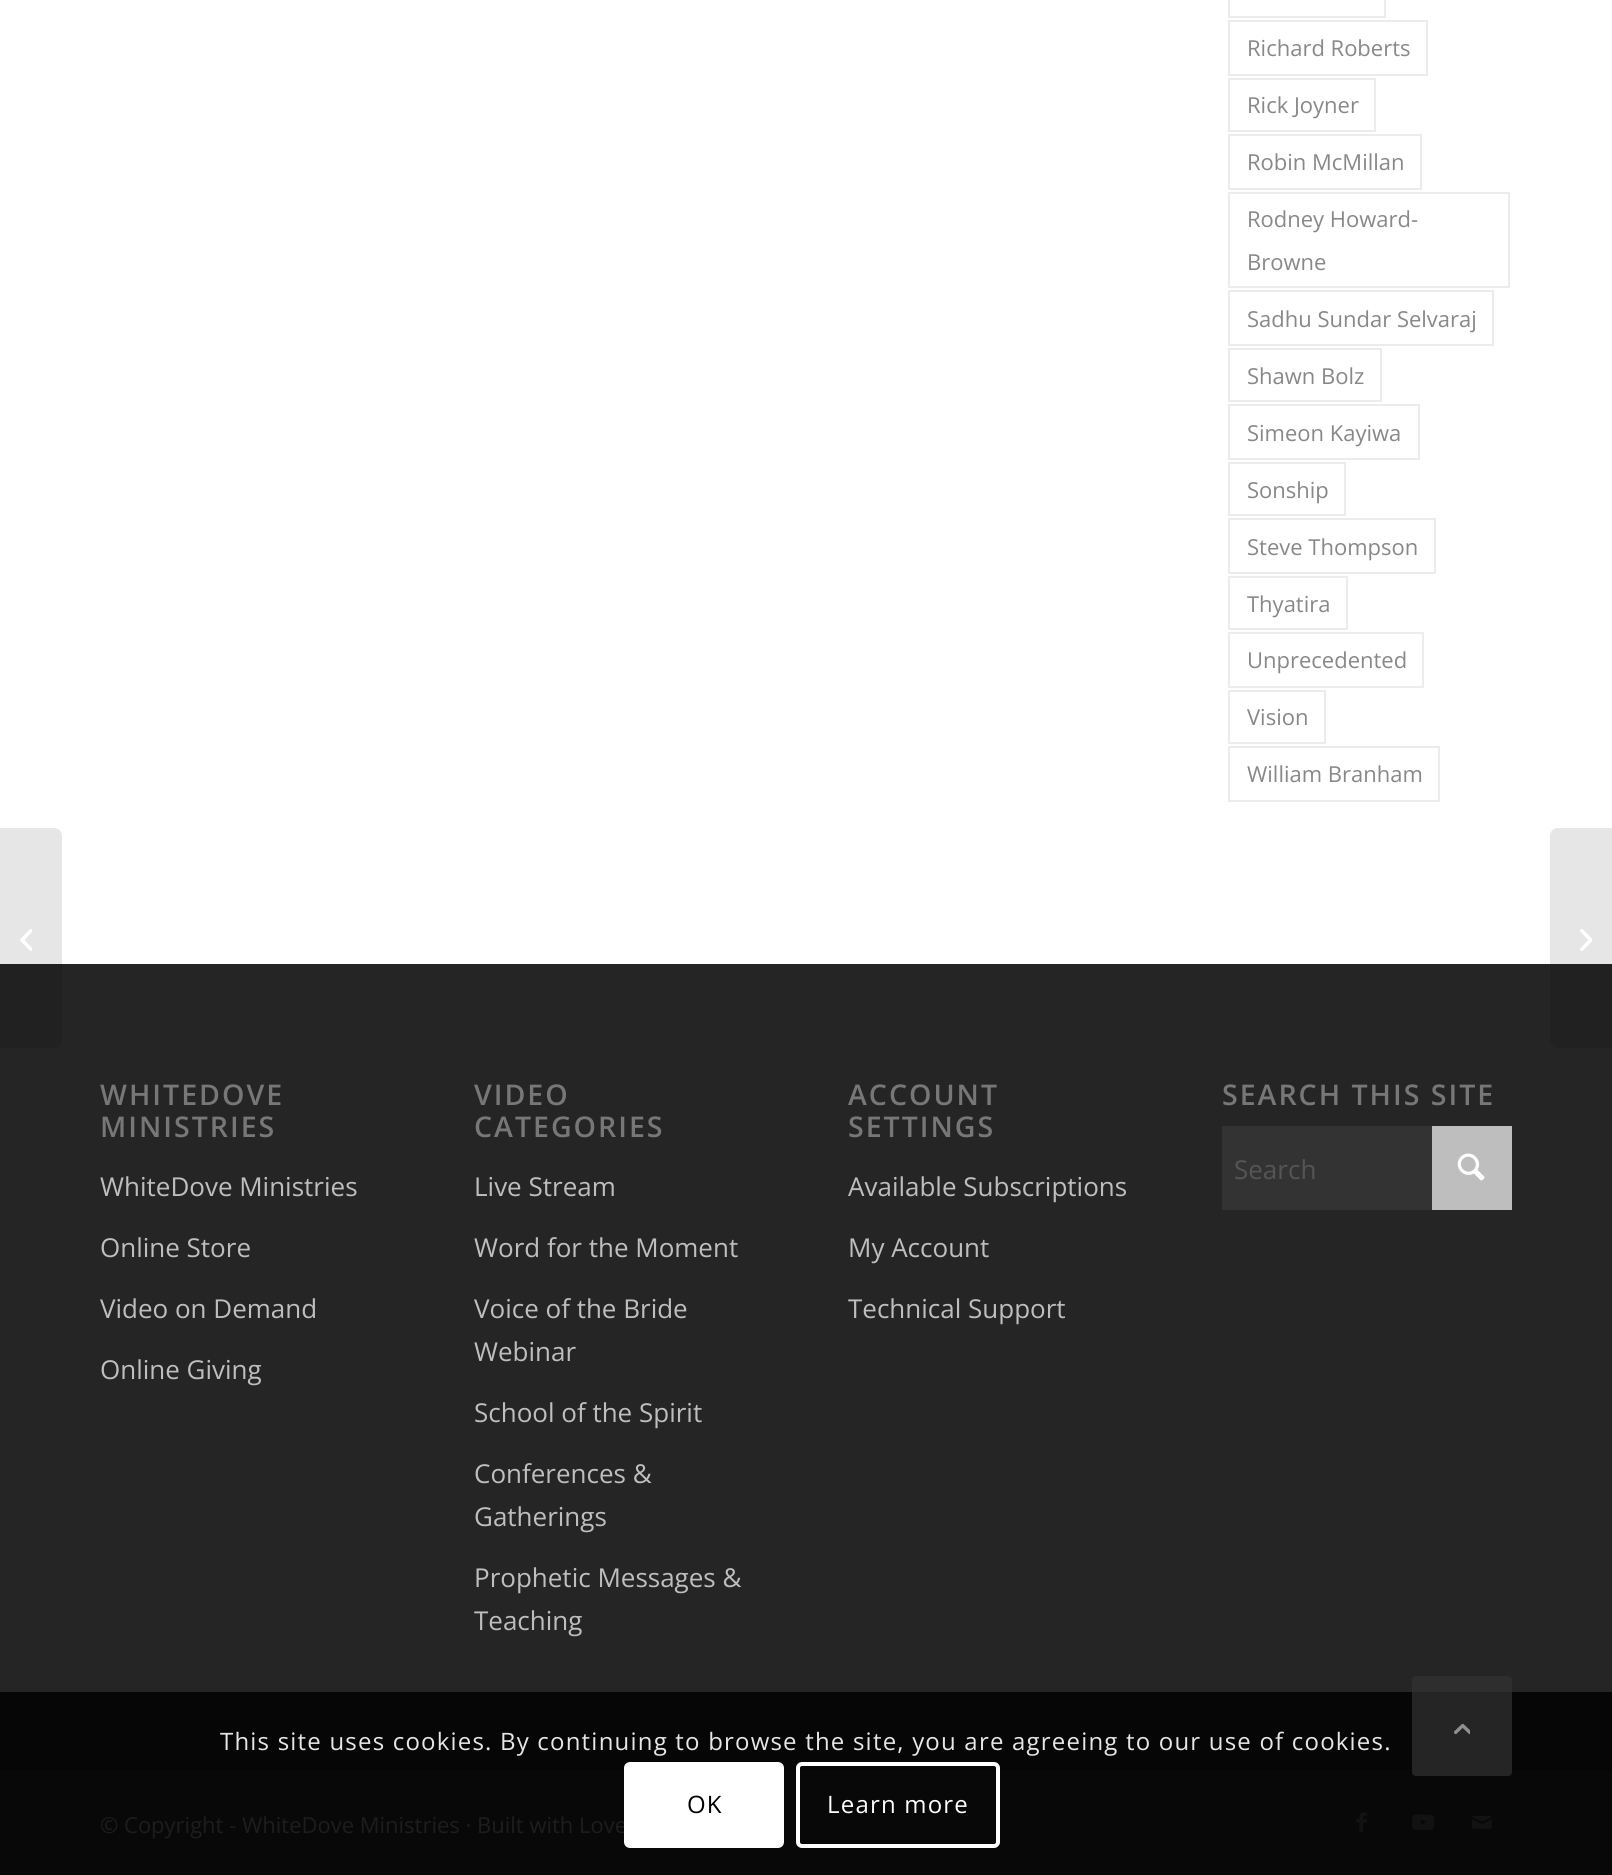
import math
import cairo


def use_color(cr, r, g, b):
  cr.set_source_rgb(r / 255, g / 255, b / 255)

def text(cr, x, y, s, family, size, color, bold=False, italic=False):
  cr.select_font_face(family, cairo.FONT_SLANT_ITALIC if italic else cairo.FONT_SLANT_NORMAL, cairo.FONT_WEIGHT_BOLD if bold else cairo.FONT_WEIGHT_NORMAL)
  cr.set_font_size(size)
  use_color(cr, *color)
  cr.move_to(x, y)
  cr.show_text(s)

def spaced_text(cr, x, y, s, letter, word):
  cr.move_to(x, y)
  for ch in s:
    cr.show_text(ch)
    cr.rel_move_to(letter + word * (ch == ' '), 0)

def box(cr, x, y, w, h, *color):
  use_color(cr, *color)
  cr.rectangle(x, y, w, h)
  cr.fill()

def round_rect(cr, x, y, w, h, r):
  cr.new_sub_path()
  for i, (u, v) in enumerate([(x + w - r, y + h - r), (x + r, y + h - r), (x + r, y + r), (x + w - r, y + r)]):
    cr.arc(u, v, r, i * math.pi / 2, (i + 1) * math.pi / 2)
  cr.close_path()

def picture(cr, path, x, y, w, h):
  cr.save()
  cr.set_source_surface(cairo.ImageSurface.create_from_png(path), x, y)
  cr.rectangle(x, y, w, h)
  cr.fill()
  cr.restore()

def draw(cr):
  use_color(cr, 255, 255, 255)
  cr.paint()
  box(cr, 0, 964, 1612, 728, 37, 37, 37)
  cr.set_source_rgba(0, 0, 0, 0.1)
  cr.new_path()
  cr.move_to(0, 828)
  cr.line_to(54, 828)
  cr.curve_to(58.5, 828, 62, 831.5, 62, 836)
  cr.line_to(62, 1040)
  cr.curve_to(62, 1044.5, 58.5, 1048, 54, 1048)
  cr.line_to(0, 1048)
  cr.close_path()
  cr.fill()
  picture(cr, "img_01.png", 20, 929, 12, 22)
  cr.rectangle(1229, -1, 156, 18)
  use_color(cr, 236, 236, 236)
  cr.stroke()
  cr.rectangle(1229, 21, 198, 54)
  cr.stroke()
  cr.rectangle(1229, 79, 146, 52)
  cr.stroke()
  cr.rectangle(1229, 135, 192, 54)
  cr.stroke()
  cr.rectangle(1229, 193, 280, 94)
  cr.stroke()
  cr.rectangle(1229, 291, 264, 54)
  cr.stroke()
  cr.rectangle(1229, 349, 152, 52)
  cr.stroke()
  cr.rectangle(1229, 405, 190, 54)
  cr.stroke()
  cr.rectangle(1229, 463, 116, 52)
  cr.stroke()
  cr.rectangle(1229, 519, 206, 54)
  cr.stroke()
  cr.rectangle(1229, 577, 118, 52)
  cr.stroke()
  cr.rectangle(1229, 633, 194, 54)
  cr.stroke()
  cr.rectangle(1229, 691, 96, 52)
  cr.stroke()
  cr.rectangle(1229, 747, 210, 54)
  cr.stroke()
  box(cr, 0, 1692, 1612, 78, 6, 6, 6)
  box(cr, 1432, 1126, 80, 84, 190, 190, 190)
  box(cr, 1222, 1126, 210, 84, 51, 51, 51)
  picture(cr, "img_02.png", 1457, 1153, 28, 28)
  box(cr, 0, 1770, 1612, 105, 8, 8, 8)
  picture(cr, "img_03.png", 1356, 1812, 11, 21)
  picture(cr, "img_04.png", 1412, 1814, 22, 16)
  picture(cr, "img_05.png", 1472, 1815, 20, 14)
  cr.set_source_rgba(0, 0, 0, 0.1)
  cr.new_path()
  cr.move_to(1558, 828)
  cr.line_to(1612, 828)
  cr.line_to(1612, 1048)
  cr.line_to(1558, 1048)
  cr.curve_to(1553.5, 1048, 1550, 1044.5, 1550, 1040)
  cr.line_to(1550, 836)
  cr.curve_to(1550, 831.5, 1553.5, 828, 1558, 828)
  cr.close_path()
  cr.fill()
  picture(cr, "img_06.png", 1580, 929, 12, 22)
  round_rect(cr, 798, 1764, 200, 82, 4)
  use_color(cr, 255, 255, 255)
  cr.set_line_width(4)
  cr.stroke()
  cr.set_source_rgba(0.2, 0.2, 0.2, 0.7)
  round_rect(cr, 1412, 1676, 100, 100, 4)
  cr.fill()
  picture(cr, "img_07.png", 1454, 1723, 16, 12)
  text(cr, 1247, 56, "Richard Roberts", "Open Sans", 22, (136, 136, 136))
  text(cr, 1247, 113, "Rick Joyner", "Open Sans", 22, (136, 136, 136))
  text(cr, 1247, 170, "Robin McMillan", "Open Sans", 22, (136, 136, 136))
  text(cr, 1247, 227, "Rodney Howard-", "Open Sans", 22, (136, 136, 136))
  text(cr, 1247, 270, "Browne", "Open Sans", 22, (136, 136, 136))
  text(cr, 1247, 327, "Sadhu Sundar Selvaraj", "Open Sans", 22, (136, 136, 136))
  text(cr, 1247, 384, "Shawn Bolz", "Open Sans", 22, (136, 136, 136))
  text(cr, 1247, 441, "Simeon Kayiwa", "Open Sans", 22, (136, 136, 136))
  text(cr, 1247, 498, "Sonship", "Open Sans", 22, (136, 136, 136))
  text(cr, 1247, 555, "Steve Thompson", "Open Sans", 22, (136, 136, 136))
  text(cr, 1247, 612, "Thyatira", "Open Sans", 22, (136, 136, 136))
  text(cr, 1247, 668, "Unprecedented", "Open Sans", 22, (136, 136, 136))
  text(cr, 1247, 725, "Vision", "Open Sans", 22, (136, 136, 136))
  text(cr, 1247, 782, "William Branham", "Open Sans", 22, (136, 136, 136))
  cr.select_font_face("Open Sans SemiBold")
  cr.set_font_size(28.5)
  use_color(cr, 119, 119, 119)
  spaced_text(cr, 100, 1105, "WHITEDOVE", 2, 0)
  spaced_text(cr, 100, 1137, "MINISTRIES", 2, 0)
  text(cr, 100, 1196, "WhiteDove Ministries", "Open Sans", 26, (190, 190, 190))
  text(cr, 100, 1257, "Online Store", "Open Sans", 26, (190, 190, 190))
  text(cr, 100, 1318, "Video on Demand", "Open Sans", 26, (190, 190, 190))
  text(cr, 100, 1379, "Online Giving", "Open Sans", 26, (190, 190, 190))
  cr.select_font_face("Open Sans SemiBold")
  cr.set_font_size(28.5)
  use_color(cr, 119, 119, 119)
  spaced_text(cr, 474, 1105, "VIDEO", 2, 0)
  spaced_text(cr, 474, 1137, "CATEGORIES", 2, 0)
  text(cr, 474, 1196, "Live Stream", "Open Sans", 26, (190, 190, 190))
  text(cr, 474, 1257, "Word for the Moment", "Open Sans", 26, (190, 190, 190))
  text(cr, 474, 1318, "Voice of the Bride", "Open Sans", 26, (190, 190, 190))
  text(cr, 474, 1361, "Webinar", "Open Sans", 26, (190, 190, 190))
  text(cr, 474, 1422, "School of the Spirit", "Open Sans", 26, (190, 190, 190))
  text(cr, 474, 1483, "Conferences &", "Open Sans", 26, (190, 190, 190))
  text(cr, 474, 1526, "Gatherings", "Open Sans", 26, (190, 190, 190))
  text(cr, 474, 1587, "Prophetic Messages &", "Open Sans", 26, (190, 190, 190))
  text(cr, 474, 1630, "Teaching", "Open Sans", 26, (190, 190, 190))
  cr.select_font_face("Open Sans SemiBold")
  cr.set_font_size(28.5)
  use_color(cr, 119, 119, 119)
  spaced_text(cr, 848, 1105, "ACCOUNT", 2, 0)
  spaced_text(cr, 848, 1137, "SETTINGS", 2, 0)
  text(cr, 848, 1196, "Available Subscriptions", "Open Sans", 26, (190, 190, 190))
  text(cr, 848, 1257, "My Account", "Open Sans", 26, (190, 190, 190))
  text(cr, 848, 1318, "Technical Support", "Open Sans", 26, (190, 190, 190))
  cr.select_font_face("Open Sans SemiBold")
  cr.set_font_size(28.5)
  use_color(cr, 119, 119, 119)
  spaced_text(cr, 1222, 1105, "SEARCH THIS SITE", 2, 0)
  text(cr, 1234, 1179, "Search", "Open Sans", 26, (85, 85, 85))
  text(cr, 100, 1833, "© Copyright - WhiteDove Ministries · Built with Love", "Open Sans", 22, (29, 29, 29))
  cr.set_font_size(24)
  use_color(cr, 230, 230, 230)
  spaced_text(cr, 220, 1750, "This site uses cookies. By continuing to browse the site, you are agreeing to our use of cookies.", 1.2, 0)
  use_color(cr, 255, 255, 255)
  round_rect(cr, 624, 1762, 160, 86, 6)
  cr.fill()
  use_color(cr, 0, 0, 0)
  spaced_text(cr, 687, 1813, "OK", 1.2, 0)
  use_color(cr, 255, 255, 255)
  spaced_text(cr, 827, 1813, "Learn more", 1.2, 0)


surface = cairo.ImageSurface(cairo.FORMAT_RGB24, 1612, 1875)
cr = cairo.Context(surface)
options = cairo.FontOptions()
options.set_hint_metrics(cairo.HINT_METRICS_OFF)
options.set_hint_style(cairo.HINT_STYLE_NONE)
cr.set_font_options(options)
cr.set_miter_limit(4)
draw(cr)
surface.write_to_png("out.png")
